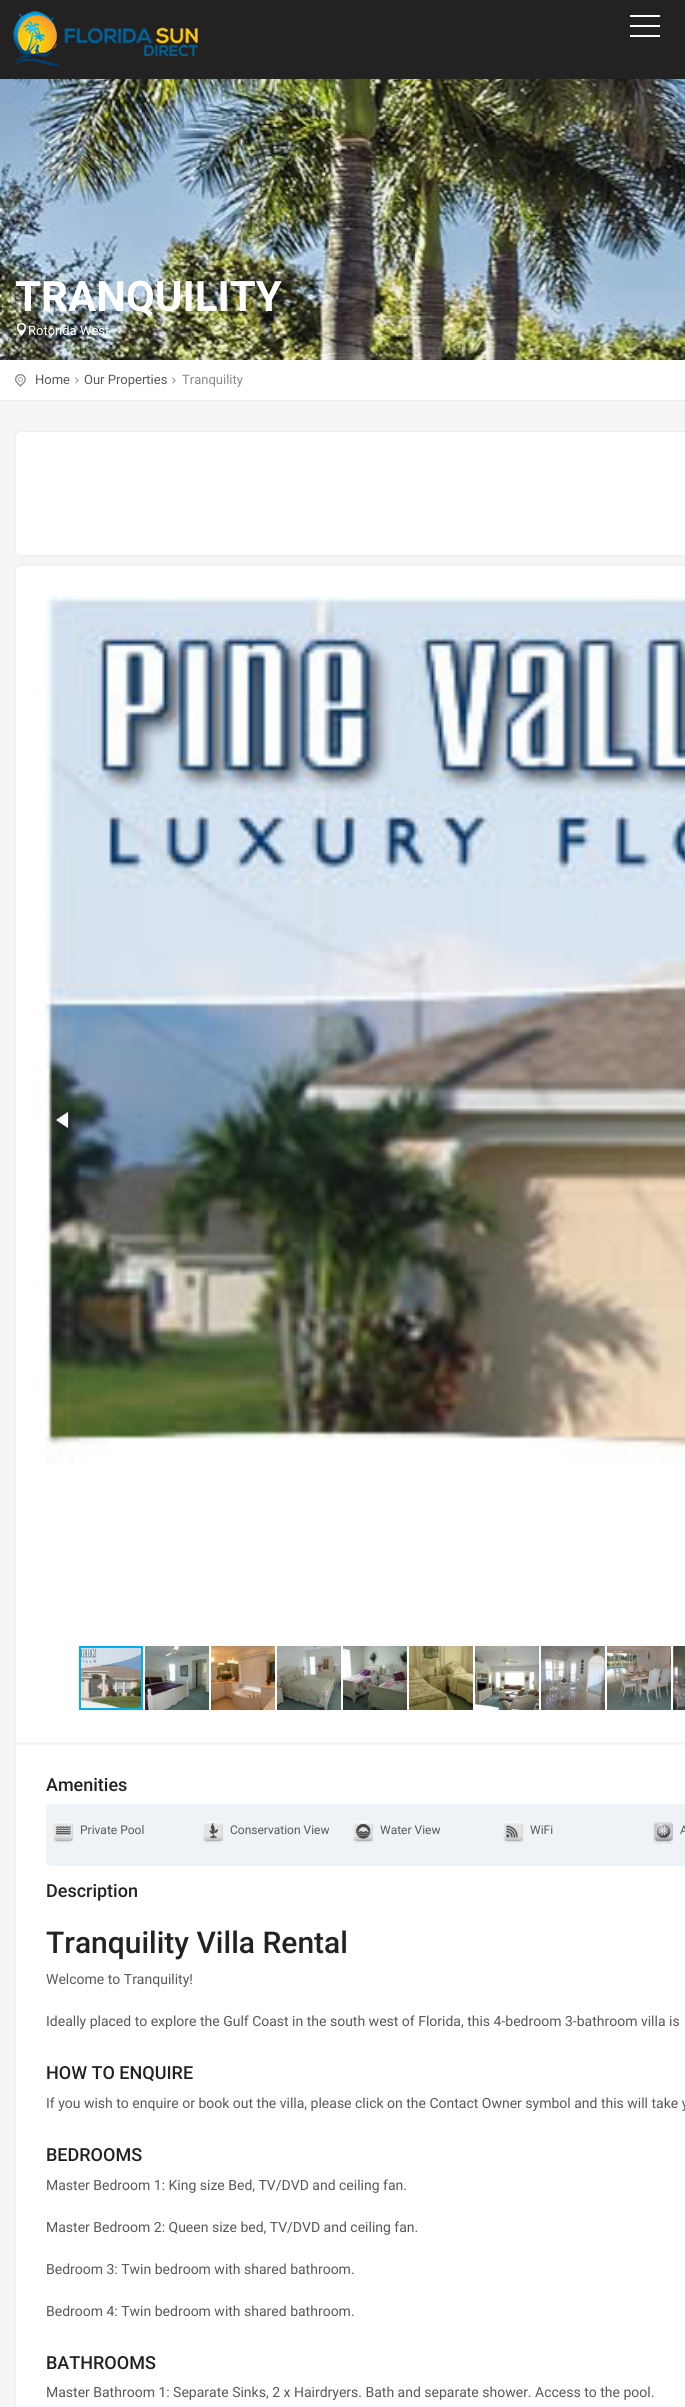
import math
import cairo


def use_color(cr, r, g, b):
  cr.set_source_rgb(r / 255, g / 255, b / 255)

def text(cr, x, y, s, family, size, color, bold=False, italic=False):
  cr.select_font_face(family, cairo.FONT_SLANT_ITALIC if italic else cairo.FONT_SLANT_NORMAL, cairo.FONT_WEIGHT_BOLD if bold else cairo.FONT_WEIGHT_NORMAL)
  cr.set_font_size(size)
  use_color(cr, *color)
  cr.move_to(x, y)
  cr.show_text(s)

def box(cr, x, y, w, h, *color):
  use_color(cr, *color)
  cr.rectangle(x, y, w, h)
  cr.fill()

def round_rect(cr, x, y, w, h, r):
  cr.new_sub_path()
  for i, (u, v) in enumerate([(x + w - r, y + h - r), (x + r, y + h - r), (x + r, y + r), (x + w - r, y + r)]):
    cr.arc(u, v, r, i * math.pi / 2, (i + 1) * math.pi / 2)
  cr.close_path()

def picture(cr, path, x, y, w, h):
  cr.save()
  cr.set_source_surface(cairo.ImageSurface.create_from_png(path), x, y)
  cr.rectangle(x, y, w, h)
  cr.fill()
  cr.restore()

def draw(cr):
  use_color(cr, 245, 245, 245)
  cr.paint()
  picture(cr, "img_01.png", 0, 79, 685, 281)
  box(cr, 0, 0, 685, 79, 34, 34, 34)
  picture(cr, "img_02.png", 13, 11, 185, 55)
  box(cr, 630, 25, 30, 2, 255, 255, 255)
  box(cr, 630, 15, 30, 2, 255, 255, 255)
  box(cr, 630, 35, 30, 2, 255, 255, 255)
  picture(cr, "img_03.png", 16, 322, 11, 14)
  box(cr, 0, 360, 685, 40, 255, 255, 255)
  box(cr, 0, 400, 685, 1, 237, 237, 237)
  picture(cr, "img_04.png", 15, 374, 11, 13)
  picture(cr, "img_05.png", 75, 377, 4, 7)
  picture(cr, "img_05.png", 172, 377, 4, 7)
  use_color(cr, 255, 255, 255)
  round_rect(cr, 15.5, 431.5, 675, 124, 4.5)
  cr.fill_preserve()
  use_color(cr, 237, 237, 237)
  cr.set_line_width(1)
  cr.stroke()
  use_color(cr, 255, 255, 255)
  round_rect(cr, 15.5, 565.5, 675, 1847, 4.5)
  cr.fill_preserve()
  use_color(cr, 237, 237, 237)
  cr.stroke()
  picture(cr, "img_06.png", 46, 596, 639, 867)
  picture(cr, "img_07.png", 55, 1111, 16, 18)
  picture(cr, "img_17.png", 81, 1648, 60, 60)
  cr.rectangle(80, 1647, 62, 62)
  use_color(cr, 0, 175, 234)
  cr.set_line_width(2)
  cr.stroke()
  picture(cr, "img_08.png", 145, 1646, 64, 64)
  picture(cr, "img_09.png", 211, 1646, 64, 64)
  picture(cr, "img_10.png", 277, 1646, 64, 64)
  picture(cr, "img_11.png", 343, 1646, 64, 64)
  picture(cr, "img_12.png", 409, 1646, 64, 64)
  picture(cr, "img_13.png", 475, 1646, 64, 64)
  picture(cr, "img_14.png", 541, 1646, 64, 64)
  picture(cr, "img_15.png", 607, 1646, 64, 64)
  picture(cr, "img_16.png", 673, 1646, 12, 64)
  box(cr, 16, 1742, 669, 3, 245, 245, 245)
  use_color(cr, 238, 243, 247)
  round_rect(cr, 46, 1804, 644, 62, 5)
  cr.fill()
  picture(cr, "img_18.png", 53, 1821, 20, 23)
  picture(cr, "img_19.png", 203, 1821, 20, 23)
  picture(cr, "img_20.png", 353, 1821, 20, 23)
  picture(cr, "img_21.png", 503, 1821, 20, 23)
  picture(cr, "img_22.png", 653, 1821, 20, 23)
  text(cr, 15, 311, "TRANQUILITY", "Roboto", 42, (255, 255, 255), bold=True)
  text(cr, 28, 335, "Rotonda West", "Roboto", 13, (255, 255, 255))
  text(cr, 35, 384, "Home", "Roboto", 13, (88, 88, 88))
  text(cr, 84, 384, "Our Properties", "Roboto", 13, (88, 88, 88))
  text(cr, 182, 384, "Tranquility", "Roboto", 13, (136, 136, 136))
  text(cr, 46, 1791, "Amenities", "Roboto Medium", 18, (34, 34, 34))
  text(cr, 80, 1834, "Private Pool", "Roboto", 12, (88, 88, 88))
  text(cr, 230, 1834, "Conservation View", "Roboto", 12, (88, 88, 88))
  text(cr, 380, 1834, "Water View", "Roboto", 12, (88, 88, 88))
  text(cr, 530, 1834, "WiFi", "Roboto", 12, (88, 88, 88))
  text(cr, 680, 1834, "A", "Roboto", 12, (88, 88, 88))
  text(cr, 46, 1897, "Description", "Roboto Medium", 18, (34, 34, 34))
  text(cr, 46, 1953, "Tranquility Villa Rental", "Roboto Medium", 30, (34, 34, 34))
  text(cr, 46, 1984, "Welcome to Tranquility!", "Roboto", 14, (88, 88, 88))
  text(cr, 46, 2026, "Ideally placed to explore the Gulf Coast in the south west of Florida, this 4-bedroom 3-bathroom villa is", "Roboto", 14, (88, 88, 88))
  text(cr, 46, 2079, "HOW TO ENQUIRE", "Roboto Medium", 18, (34, 34, 34))
  text(cr, 46, 2108, "If you wish to enquire or book out the villa, please click on the Contact Owner symbol and this will take y", "Roboto", 14, (88, 88, 88))
  text(cr, 46, 2161, "BEDROOMS", "Roboto Medium", 18, (34, 34, 34))
  text(cr, 46, 2190, "Master Bedroom 1: King size Bed, TV/DVD and ceiling fan.", "Roboto", 14, (88, 88, 88))
  text(cr, 46, 2232, "Master Bedroom 2: Queen size bed, TV/DVD and ceiling fan.", "Roboto", 14, (88, 88, 88))
  text(cr, 46, 2274, "Bedroom 3: Twin bedroom with shared bathroom.", "Roboto", 14, (88, 88, 88))
  text(cr, 46, 2316, "Bedroom 4: Twin bedroom with shared bathroom.", "Roboto", 14, (88, 88, 88))
  text(cr, 46, 2369, "BATHROOMS", "Roboto Medium", 18, (34, 34, 34))
  text(cr, 46, 2397, "Master Bathroom 1: Separate Sinks, 2 x Hairdryers. Bath and separate shower. Access to the pool.", "Roboto", 14, (88, 88, 88))


surface = cairo.ImageSurface(cairo.FORMAT_RGB24, 685, 2407)
cr = cairo.Context(surface)
options = cairo.FontOptions()
options.set_hint_metrics(cairo.HINT_METRICS_OFF)
options.set_hint_style(cairo.HINT_STYLE_NONE)
cr.set_font_options(options)
cr.set_miter_limit(4)
draw(cr)
surface.write_to_png("out.png")
